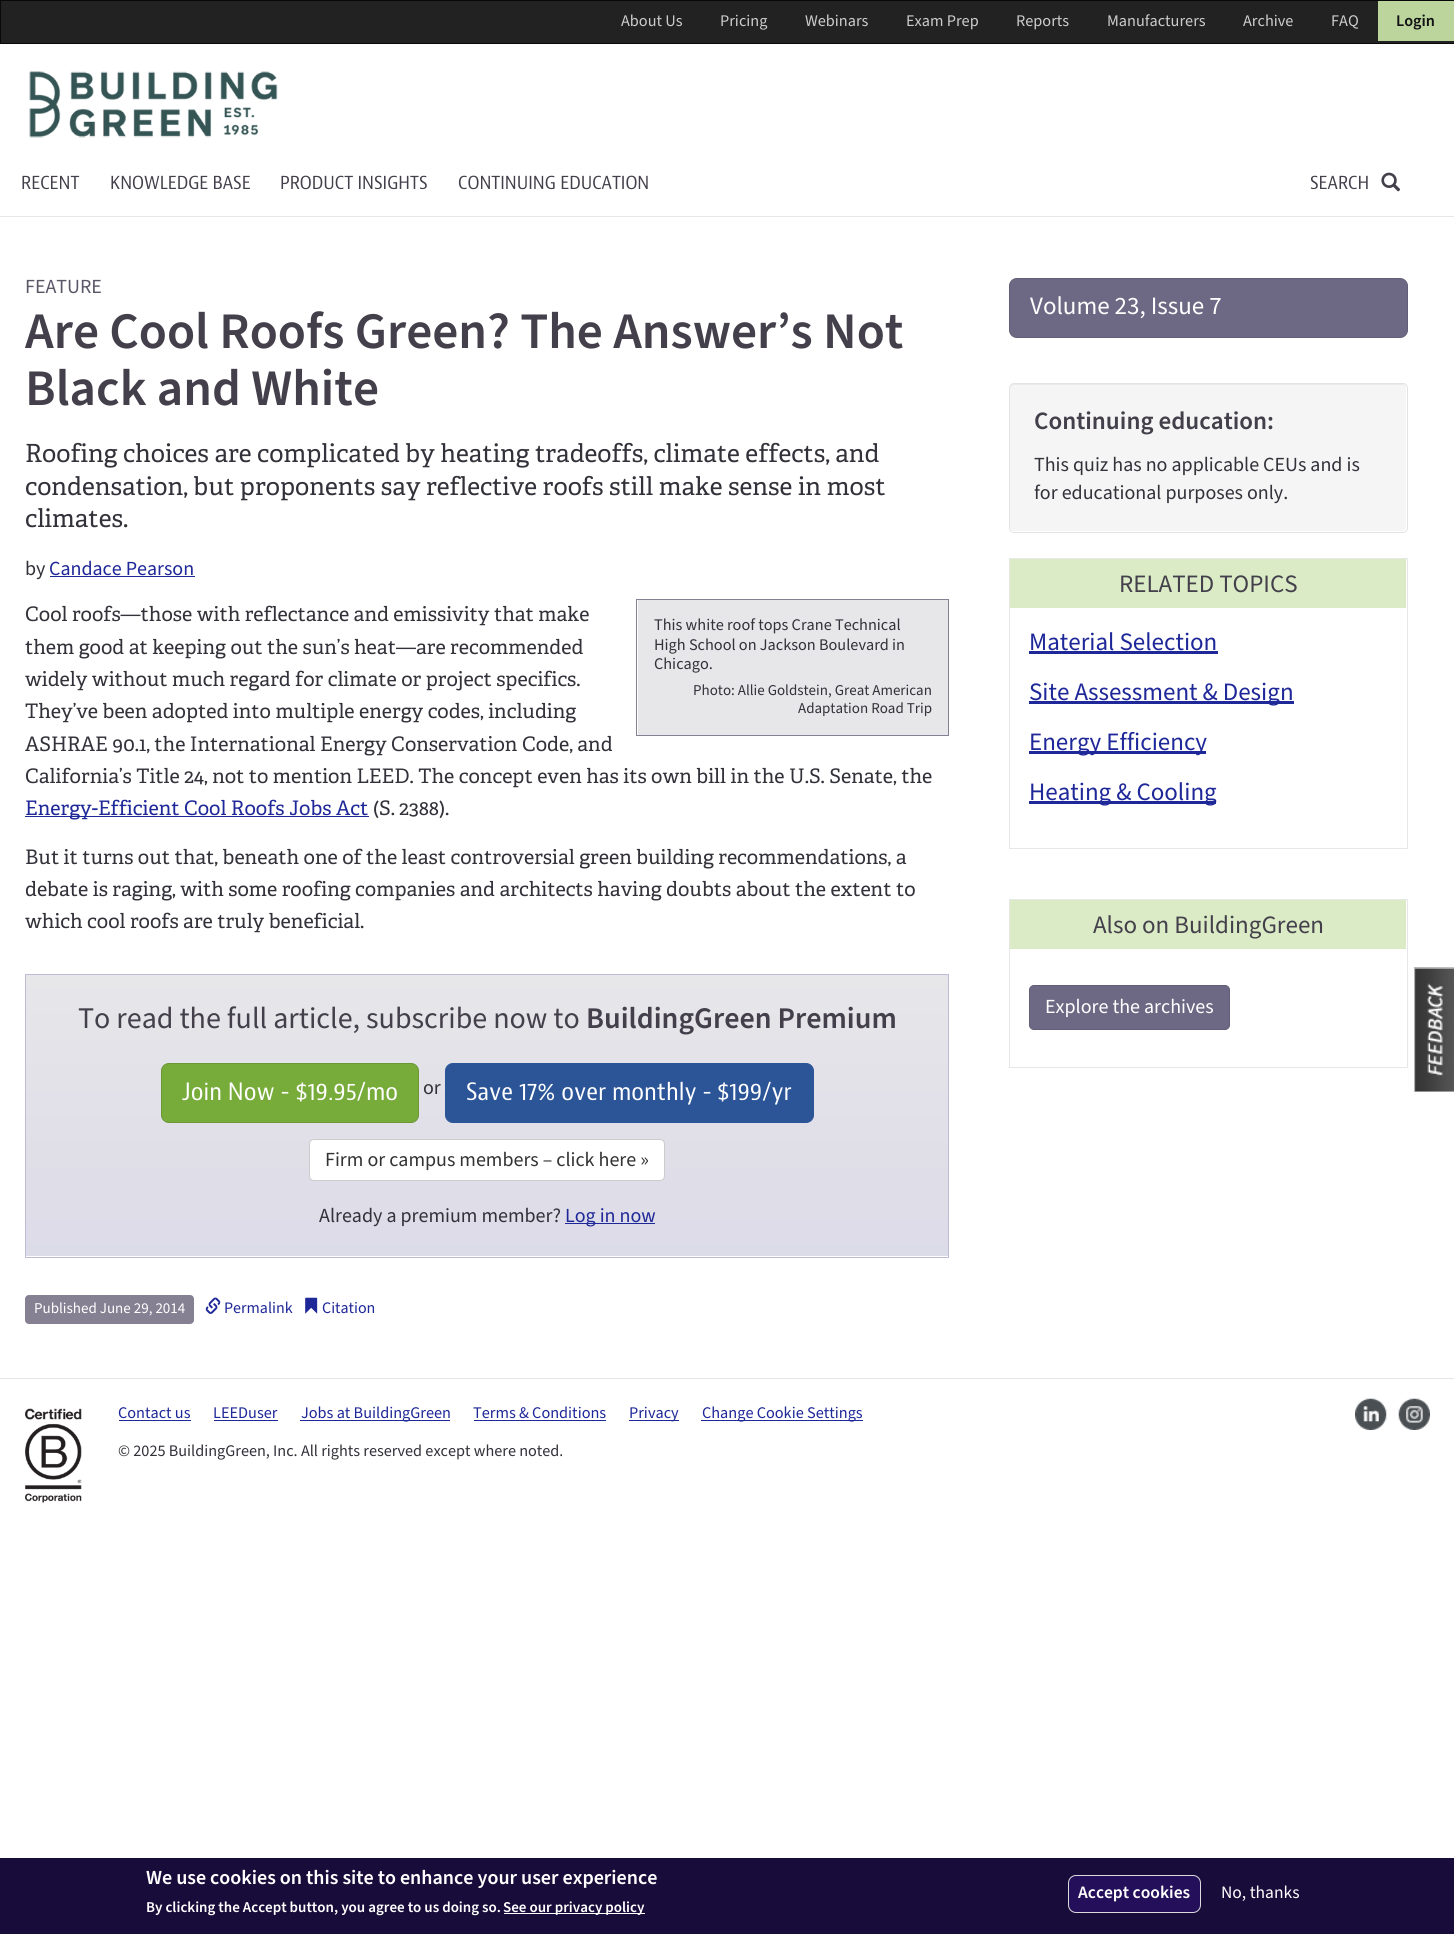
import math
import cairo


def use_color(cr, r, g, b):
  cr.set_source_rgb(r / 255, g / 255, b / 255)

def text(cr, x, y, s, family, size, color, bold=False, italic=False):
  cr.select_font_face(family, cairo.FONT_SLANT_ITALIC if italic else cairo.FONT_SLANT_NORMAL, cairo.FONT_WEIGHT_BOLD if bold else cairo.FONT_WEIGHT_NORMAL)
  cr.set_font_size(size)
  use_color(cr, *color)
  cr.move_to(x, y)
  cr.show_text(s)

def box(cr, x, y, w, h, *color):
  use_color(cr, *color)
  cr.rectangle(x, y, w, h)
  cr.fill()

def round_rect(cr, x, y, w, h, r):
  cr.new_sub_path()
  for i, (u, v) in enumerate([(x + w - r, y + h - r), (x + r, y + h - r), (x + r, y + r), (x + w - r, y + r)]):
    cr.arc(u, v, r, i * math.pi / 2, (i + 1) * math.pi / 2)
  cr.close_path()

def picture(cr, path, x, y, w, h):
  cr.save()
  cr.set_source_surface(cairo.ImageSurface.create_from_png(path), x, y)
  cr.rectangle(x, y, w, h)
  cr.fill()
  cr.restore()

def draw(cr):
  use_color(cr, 255, 255, 255)
  cr.paint()
  use_color(cr, 34, 34, 34)
  cr.rectangle(0.5, 0.5, 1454, 43)
  cr.fill_preserve()
  use_color(cr, 9, 9, 9)
  cr.set_line_width(1)
  cr.stroke()
  box(cr, 1378, 1, 76, 40, 187, 213, 157)
  picture(cr, "img_01.png", 29, 71, 249, 67)
  box(cr, 0, 216, 1454, 1, 231, 231, 231)
  picture(cr, "img_02.png", 1381, 172, 20, 20)
  box(cr, 50, 576, 145, 1, 31, 40, 152)
  cr.rectangle(636.5, 599.5, 312, 136)
  use_color(cr, 134, 128, 147)
  cr.stroke()
  box(cr, 638, 600, 310, 135, 231, 230, 233)
  box(cr, 25, 816, 344, 1, 31, 40, 152)
  gradient = cairo.LinearGradient(487, 975, 487, 1256)
  gradient.add_color_stop_rgba(0, 0.906, 0.902, 0.914, 1)
  gradient.add_color_stop_rgba(1, 0.863, 0.859, 0.91, 1)
  cr.set_source(gradient)
  cr.rectangle(26, 975, 922, 281)
  cr.fill()
  cr.rectangle(25.5, 974.5, 923, 283)
  use_color(cr, 190, 188, 212)
  cr.stroke()
  use_color(cr, 119, 171, 58)
  round_rect(cr, 161.5, 1063.5, 257, 59, 7.5)
  cr.fill_preserve()
  use_color(cr, 106, 152, 52)
  cr.stroke()
  use_color(cr, 43, 85, 151)
  round_rect(cr, 445.5, 1063.5, 368, 59, 7.5)
  cr.fill_preserve()
  cr.stroke()
  use_color(cr, 255, 255, 255)
  round_rect(cr, 309.5, 1139.5, 355, 41, 4.5)
  cr.fill_preserve()
  use_color(cr, 204, 204, 204)
  cr.stroke()
  box(cr, 565, 1223, 90, 1, 31, 40, 152)
  use_color(cr, 134, 128, 147)
  round_rect(cr, 25, 1295, 169, 29, 4)
  cr.fill()
  picture(cr, "img_03.png", 205, 1297, 16, 17)
  picture(cr, "img_04.png", 305, 1297, 13, 17)
  use_color(cr, 109, 105, 132)
  round_rect(cr, 1009.5, 278.5, 398, 59, 7.5)
  cr.fill_preserve()
  use_color(cr, 97, 94, 118)
  cr.stroke()
  use_color(cr, 245, 245, 245)
  round_rect(cr, 1010, 384, 396, 147, 4)
  cr.fill()
  cr.set_source_rgba(0, 0, 0, 0.05)
  cr.new_path()
  cr.move_to(1014, 385)
  cr.line_to(1402, 385)
  cr.curve_to(1405, 385, 1406, 387, 1406, 389)
  cr.curve_to(1406, 386, 1405, 384, 1402, 384)
  cr.line_to(1014, 384)
  cr.curve_to(1011, 384, 1010, 386, 1010, 389)
  cr.curve_to(1010, 387, 1012, 385, 1014, 385)
  cr.close_path()
  cr.fill()
  round_rect(cr, 1009.5, 383.5, 398, 149, 4.5)
  use_color(cr, 227, 227, 227)
  cr.stroke()
  cr.rectangle(1009.5, 558.5, 398, 290)
  use_color(cr, 231, 230, 233)
  cr.stroke()
  box(cr, 1010, 559, 396, 49, 218, 235, 198)
  box(cr, 1029, 651, 189, 3, 31, 40, 152)
  box(cr, 1029, 701, 265, 3, 31, 40, 152)
  box(cr, 1029, 751, 177, 3, 31, 40, 152)
  box(cr, 1029, 801, 187, 3, 31, 40, 152)
  cr.rectangle(1009.5, 899.5, 398, 168)
  use_color(cr, 231, 230, 233)
  cr.stroke()
  box(cr, 1010, 900, 396, 49, 218, 235, 198)
  use_color(cr, 109, 105, 132)
  round_rect(cr, 1029.5, 985.5, 200, 44, 4.5)
  cr.fill_preserve()
  use_color(cr, 97, 94, 118)
  cr.stroke()
  box(cr, 0, 1378, 1454, 1, 229, 229, 229)
  picture(cr, "img_05.png", 25, 1408, 57, 95)
  box(cr, 119, 1420, 72, 1, 31, 40, 152)
  box(cr, 214, 1420, 64, 1, 31, 40, 152)
  box(cr, 300, 1420, 150, 1, 31, 40, 152)
  box(cr, 474, 1420, 132, 1, 31, 40, 152)
  box(cr, 629, 1420, 50, 1, 31, 40, 152)
  box(cr, 701, 1420, 162, 1, 31, 40, 152)
  picture(cr, "img_06.png", 1355, 1398, 32, 32)
  picture(cr, "img_07.png", 1398, 1398, 32, 32)
  picture(cr, "img_08.png", 1414, 967, 40, 125)
  box(cr, 0, 1858, 1454, 76, 24, 12, 58)
  box(cr, 504, 1913, 141, 1, 255, 255, 255)
  use_color(cr, 35, 15, 90)
  round_rect(cr, 1068.5, 1875.5, 132, 37, 7.5)
  cr.fill_preserve()
  use_color(cr, 220, 220, 220)
  cr.stroke()
  text(cr, 621, 26, "About Us", "Source Sans Pro", 16.25, (204, 204, 204))
  text(cr, 720, 26, "Pricing", "Source Sans Pro", 16.25, (204, 204, 204))
  text(cr, 805, 26, "Webinars", "Source Sans Pro", 16.25, (204, 204, 204))
  text(cr, 906, 26, "Exam Prep", "Source Sans Pro", 16.25, (204, 204, 204))
  text(cr, 1016, 26, "Reports", "Source Sans Pro", 16.25, (204, 204, 204))
  text(cr, 1107, 26, "Manufacturers", "Source Sans Pro", 16.25, (204, 204, 204))
  text(cr, 1243, 26, "Archive", "Source Sans Pro", 16.25, (204, 204, 204))
  text(cr, 1331, 26, "FAQ", "Source Sans Pro", 16.25, (204, 204, 204))
  text(cr, 1396, 26, "Login", "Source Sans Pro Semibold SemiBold", 16.25, (18, 17, 20))
  text(cr, 21, 189, "RECENT", "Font", 18.75, (68, 64, 75))
  text(cr, 110, 189, "KNOWLEDGE BASE", "Font", 18.75, (68, 64, 75))
  text(cr, 280, 189, "PRODUCT INSIGHTS", "Font", 18.75, (68, 64, 75))
  text(cr, 458, 189, "CONTINUING EDUCATION", "Font", 18.75, (68, 64, 75))
  text(cr, 1310, 189, "SEARCH", "Font", 18.75, (68, 64, 75))
  text(cr, 25, 293, "FEATURE", "Source Sans Pro", 20, (92, 87, 103))
  text(cr, 25, 348, "Are Cool Roofs Green? The Answer’s Not", "Source Sans Pro Semibold SemiBold", 51.25, (68, 64, 75))
  text(cr, 25, 405, "Black and White", "Source Sans Pro Semibold SemiBold", 51.25, (68, 64, 75))
  text(cr, 25, 462, "Roofing choices are complicated by heating tradeoffs, climate effects, and", "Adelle", 25, (51, 49, 57))
  text(cr, 25, 495, "condensation, but proponents say reflective roofs still make sense in most", "Adelle", 25, (51, 49, 57))
  text(cr, 25, 527, "climates.", "Adelle", 25, (51, 49, 57))
  text(cr, 25, 575, "by", "Source Sans Pro", 20, (51, 49, 57))
  text(cr, 49, 575, "Candace Pearson", "Source Sans Pro", 20, (31, 40, 152))
  text(cr, 25, 621, "Cool roofs—those with reflectance and emissivity that make", "Adelle", 20, (51, 49, 57))
  text(cr, 25, 654, "them good at keeping out the sun’s heat—are recommended", "Adelle", 20, (51, 49, 57))
  text(cr, 654, 630, "This white roof tops Crane Technical", "Source Sans Pro", 16.25, (51, 49, 57))
  text(cr, 654, 650, "High School on Jackson Boulevard in", "Source Sans Pro", 16.25, (51, 49, 57))
  text(cr, 654, 669, "Chicago.", "Source Sans Pro", 16.25, (51, 49, 57))
  text(cr, 693, 695, "Photo: Allie Goldstein, Great American", "Source Sans Pro", 15, (51, 49, 57))
  text(cr, 798, 713, "Adaptation Road Trip", "Source Sans Pro", 15, (51, 49, 57))
  text(cr, 25, 686, "widely without much regard for climate or project specifics.", "Adelle", 20, (51, 49, 57))
  text(cr, 25, 718, "They’ve been adopted into multiple energy codes, including", "Adelle", 20, (51, 49, 57))
  text(cr, 25, 751, "ASHRAE 90.1, the International Energy Conservation Code, and", "Adelle", 20, (51, 49, 57))
  text(cr, 25, 783, "California’s Title 24, not to mention LEED. The concept even has its own bill in the U.S. Senate, the", "Adelle", 20, (51, 49, 57))
  text(cr, 25, 815, "Energy-Efficient Cool Roofs Jobs Act", "Adelle", 20, (31, 40, 152))
  text(cr, 373, 815, "(S. 2388).", "Adelle", 20, (51, 49, 57))
  text(cr, 25, 864, "But it turns out that, beneath one of the least controversial green building recommendations, a", "Adelle", 20, (51, 49, 57))
  text(cr, 25, 896, "debate is raging, with some roofing companies and architects having doubts about the extent to", "Adelle", 20, (51, 49, 57))
  text(cr, 25, 928, "which cool roofs are truly beneficial.", "Adelle", 20, (51, 49, 57))
  text(cr, 78, 1028, "To read the full article, subscribe now to", "Source Sans Pro", 30, (68, 64, 75))
  text(cr, 586, 1028, "BuildingGreen Premium", "Source Sans Pro Semibold SemiBold", 30, (68, 64, 75))
  text(cr, 182, 1100, "Join Now - $19.95/mo", "Font", 25, (255, 255, 255))
  text(cr, 423, 1094, "or", "Source Sans Pro", 20, (51, 49, 57))
  text(cr, 466, 1100, "Save 17% over monthly - $199/yr", "Font", 25, (255, 255, 255))
  text(cr, 325, 1166, "Firm or campus members – click here »", "Source Sans Pro", 20, (51, 51, 51))
  text(cr, 319, 1222, "Already a premium member?", "Source Sans Pro", 20, (51, 49, 57))
  text(cr, 565, 1222, "Log in now", "Source Sans Pro", 20, (31, 40, 152))
  text(cr, 34, 1313, "Published June 29, 2014", "Source Sans Pro", 15, (255, 255, 255))
  text(cr, 224, 1313, "Permalink", "Source Sans Pro", 16, (31, 40, 152))
  text(cr, 322, 1313, "Citation", "Source Sans Pro", 16, (31, 40, 152))
  text(cr, 1030, 314, "Volume 23, Issue 7", "Source Sans Pro", 25, (255, 255, 255))
  text(cr, 1034, 429, "Continuing education:", "Source Sans Pro Semibold SemiBold", 25, (68, 64, 75))
  text(cr, 1034, 471, "This quiz has no applicable CEUs and is", "Source Sans Pro", 20, (51, 49, 57))
  text(cr, 1034, 499, "for educational purposes only.", "Source Sans Pro", 20, (51, 49, 57))
  text(cr, 1119, 592, "RELATED TOPICS", "Source Sans Pro", 25, (68, 64, 75))
  text(cr, 1029, 650, "Material Selection", "Source Sans Pro", 25, (31, 40, 152))
  text(cr, 1029, 700, "Site Assessment & Design", "Source Sans Pro", 25, (31, 40, 152))
  text(cr, 1029, 750, "Energy Efficiency", "Source Sans Pro", 25, (31, 40, 152))
  text(cr, 1029, 800, "Heating & Cooling", "Source Sans Pro", 25, (31, 40, 152))
  text(cr, 1093, 933, "Also on BuildingGreen", "Source Sans Pro", 25, (68, 64, 75))
  text(cr, 1045, 1013, "Explore the archives", "Source Sans Pro", 20, (255, 255, 255))
  text(cr, 118, 1418, "Contact us", "Source Sans Pro", 16.25, (31, 40, 152))
  text(cr, 213, 1418, "LEEDuser", "Source Sans Pro", 16.25, (31, 40, 152))
  text(cr, 301, 1418, "Jobs at BuildingGreen", "Source Sans Pro", 16.25, (31, 40, 152))
  text(cr, 473, 1418, "Terms & Conditions", "Source Sans Pro", 16.25, (31, 40, 152))
  text(cr, 629, 1418, "Privacy", "Source Sans Pro", 16.25, (31, 40, 152))
  text(cr, 702, 1418, "Change Cookie Settings", "Source Sans Pro", 16.25, (31, 40, 152))
  text(cr, 118, 1456, "© 2025 BuildingGreen, Inc. All rights reserved except where noted.", "Source Sans Pro", 16.2, (51, 49, 57))
  text(cr, 146, 1884, "We use cookies on this site to enhance your user experience", "Source Sans Pro Semibold SemiBold", 20, (255, 255, 255))
  text(cr, 146, 1912, "By clicking the Accept button, you agree to us doing so.", "Source Sans Pro Semibold SemiBold", 15, (255, 255, 255))
  text(cr, 503, 1912, "See our privacy policy", "Source Sans Pro Semibold SemiBold", 15, (255, 255, 255))
  text(cr, 1078, 1898, "Accept cookies", "Source Sans Pro Semibold SemiBold", 17.5, (255, 255, 255))
  text(cr, 1221, 1898, "No, thanks", "Source Sans Pro", 17.5, (255, 255, 255))


surface = cairo.ImageSurface(cairo.FORMAT_RGB24, 1454, 1934)
cr = cairo.Context(surface)
options = cairo.FontOptions()
options.set_hint_metrics(cairo.HINT_METRICS_OFF)
options.set_hint_style(cairo.HINT_STYLE_NONE)
cr.set_font_options(options)
cr.set_miter_limit(4)
draw(cr)
surface.write_to_png("out.png")
